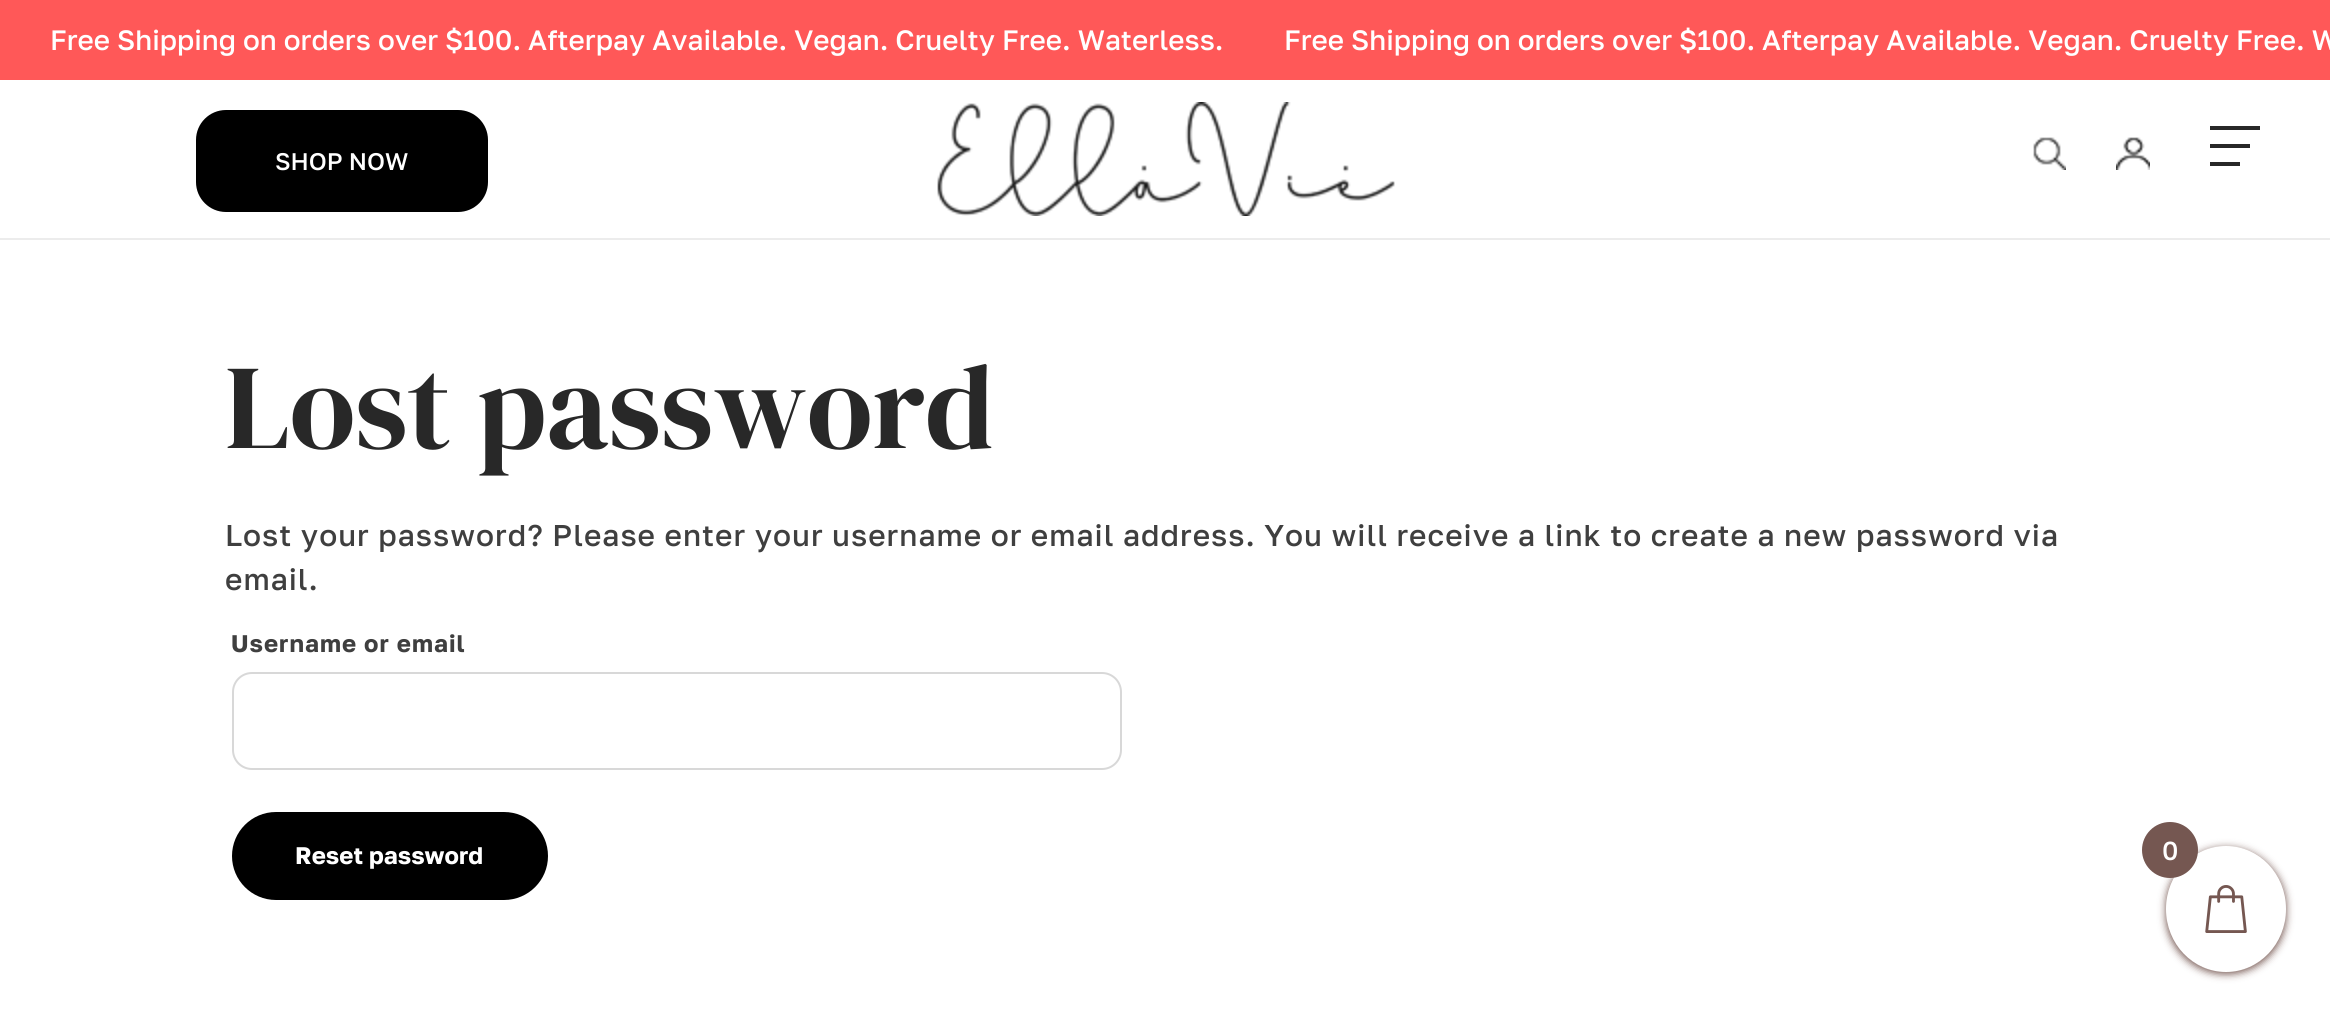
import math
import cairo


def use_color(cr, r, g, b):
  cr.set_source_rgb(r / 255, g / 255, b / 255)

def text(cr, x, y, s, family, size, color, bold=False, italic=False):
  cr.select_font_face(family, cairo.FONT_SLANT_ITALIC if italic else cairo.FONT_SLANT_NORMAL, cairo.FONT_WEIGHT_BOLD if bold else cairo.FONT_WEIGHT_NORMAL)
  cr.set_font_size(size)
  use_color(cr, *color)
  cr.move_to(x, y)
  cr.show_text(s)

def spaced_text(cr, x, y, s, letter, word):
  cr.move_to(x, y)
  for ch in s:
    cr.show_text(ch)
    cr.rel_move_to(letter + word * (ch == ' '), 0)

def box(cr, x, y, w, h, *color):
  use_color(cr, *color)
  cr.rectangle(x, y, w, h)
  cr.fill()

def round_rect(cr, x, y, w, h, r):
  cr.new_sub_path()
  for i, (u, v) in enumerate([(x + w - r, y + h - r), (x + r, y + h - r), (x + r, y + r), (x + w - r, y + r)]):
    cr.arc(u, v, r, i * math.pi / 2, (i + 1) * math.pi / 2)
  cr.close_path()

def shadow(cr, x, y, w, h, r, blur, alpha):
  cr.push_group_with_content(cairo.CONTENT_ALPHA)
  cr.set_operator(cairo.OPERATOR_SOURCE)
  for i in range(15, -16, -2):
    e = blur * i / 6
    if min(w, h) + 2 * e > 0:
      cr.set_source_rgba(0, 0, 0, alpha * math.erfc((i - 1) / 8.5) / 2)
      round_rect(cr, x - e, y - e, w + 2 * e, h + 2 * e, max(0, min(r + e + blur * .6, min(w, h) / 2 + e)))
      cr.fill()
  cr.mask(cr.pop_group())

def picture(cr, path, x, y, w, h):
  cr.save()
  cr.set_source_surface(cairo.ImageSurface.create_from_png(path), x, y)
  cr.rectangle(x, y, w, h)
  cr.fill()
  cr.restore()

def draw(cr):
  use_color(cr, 255, 255, 255)
  cr.paint()
  box(cr, 0, 0, 2330, 80, 255, 88, 88)
  box(cr, 0, 238, 2330, 2, 236, 236, 236)
  use_color(cr, 0, 0, 0)
  round_rect(cr, 196, 110, 292, 102, 30)
  cr.fill()
  picture(cr, "img_01.png", 937, 102, 458, 114)
  picture(cr, "img_02.png", 2033, 137, 33, 33)
  picture(cr, "img_03.png", 2116, 137, 34, 33)
  box(cr, 2210, 126, 50, 4, 40, 40, 40)
  box(cr, 2210, 144, 40, 4, 40, 40, 40)
  box(cr, 2210, 162, 30, 4, 40, 40, 40)
  round_rect(cr, 233, 673, 888, 96, 19)
  use_color(cr, 216, 216, 216)
  cr.stroke()
  use_color(cr, 0, 0, 0)
  round_rect(cr, 232, 812, 316, 88, 44)
  cr.fill()
  use_color(cr, 117, 87, 81)
  shadow(cr, 2166, 848, 120, 126, 60, 4, 1)
  use_color(cr, 255, 255, 255)
  cr.new_path()
  cr.move_to(2226, 846)
  cr.curve_to(2259, 846, 2286, 874, 2286, 909)
  cr.curve_to(2286, 944, 2259, 972, 2226, 972)
  cr.curve_to(2193, 972, 2166, 944, 2166, 909)
  cr.curve_to(2166, 874, 2193, 846, 2226, 846)
  cr.close_path()
  cr.fill()
  use_color(cr, 117, 87, 81)
  cr.arc(2170, 850, 28, 0, 2 * math.pi)
  cr.fill()
  picture(cr, "img_04.png", 2205, 885, 42, 48)
  text(cr, 50, 50, "Free Shipping on orders over $100. Afterpay Available. Vegan. Cruelty Free. Waterless.", "Golos Text Medium", 28, (255, 255, 255))
  text(cr, 1284, 50, "Free Shipping on orders over $100. Afterpay Available. Vegan. Cruelty Free. W", "Golos Text Medium", 28, (255, 255, 255))
  text(cr, 275, 170, "SHOP NOW", "Golos Text Medium", 24, (255, 255, 255))
  text(cr, 225, 448, "Lost password", "DM Serif Display", 120, (40, 40, 40))
  cr.select_font_face("Golos Text Medium")
  cr.set_font_size(30)
  use_color(cr, 63, 63, 63)
  spaced_text(cr, 225, 546, "Lost your password? Please enter your username or email address. You will receive a link to create a new password via", 1, 0)
  spaced_text(cr, 225, 590, "email.", 1, 0)
  cr.select_font_face("Golos Text", cairo.FONT_SLANT_NORMAL, cairo.FONT_WEIGHT_BOLD)
  cr.set_font_size(24)
  spaced_text(cr, 231, 652, "Username or email", 1, 0)
  text(cr, 295, 864, "Reset password", "Golos Text", 24, (255, 255, 255), bold=True)
  text(cr, 2162, 860, "0", "Golos Text Medium", 26, (255, 255, 255))


surface = cairo.ImageSurface(cairo.FORMAT_RGB24, 2330, 1015)
cr = cairo.Context(surface)
options = cairo.FontOptions()
options.set_hint_metrics(cairo.HINT_METRICS_OFF)
options.set_hint_style(cairo.HINT_STYLE_NONE)
cr.set_font_options(options)
cr.set_miter_limit(4)
draw(cr)
surface.write_to_png("out.png")
